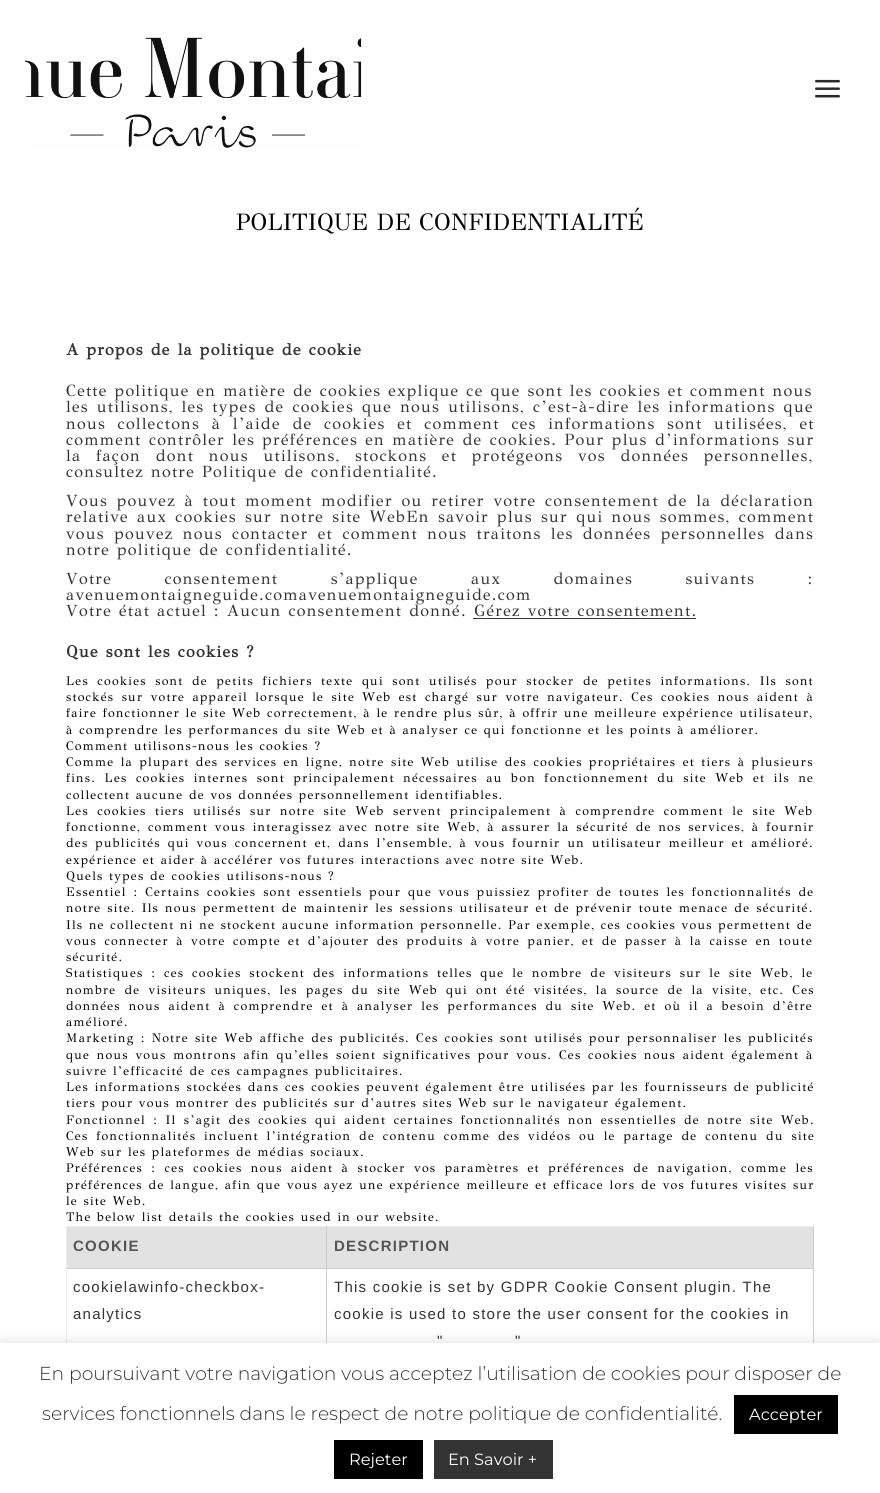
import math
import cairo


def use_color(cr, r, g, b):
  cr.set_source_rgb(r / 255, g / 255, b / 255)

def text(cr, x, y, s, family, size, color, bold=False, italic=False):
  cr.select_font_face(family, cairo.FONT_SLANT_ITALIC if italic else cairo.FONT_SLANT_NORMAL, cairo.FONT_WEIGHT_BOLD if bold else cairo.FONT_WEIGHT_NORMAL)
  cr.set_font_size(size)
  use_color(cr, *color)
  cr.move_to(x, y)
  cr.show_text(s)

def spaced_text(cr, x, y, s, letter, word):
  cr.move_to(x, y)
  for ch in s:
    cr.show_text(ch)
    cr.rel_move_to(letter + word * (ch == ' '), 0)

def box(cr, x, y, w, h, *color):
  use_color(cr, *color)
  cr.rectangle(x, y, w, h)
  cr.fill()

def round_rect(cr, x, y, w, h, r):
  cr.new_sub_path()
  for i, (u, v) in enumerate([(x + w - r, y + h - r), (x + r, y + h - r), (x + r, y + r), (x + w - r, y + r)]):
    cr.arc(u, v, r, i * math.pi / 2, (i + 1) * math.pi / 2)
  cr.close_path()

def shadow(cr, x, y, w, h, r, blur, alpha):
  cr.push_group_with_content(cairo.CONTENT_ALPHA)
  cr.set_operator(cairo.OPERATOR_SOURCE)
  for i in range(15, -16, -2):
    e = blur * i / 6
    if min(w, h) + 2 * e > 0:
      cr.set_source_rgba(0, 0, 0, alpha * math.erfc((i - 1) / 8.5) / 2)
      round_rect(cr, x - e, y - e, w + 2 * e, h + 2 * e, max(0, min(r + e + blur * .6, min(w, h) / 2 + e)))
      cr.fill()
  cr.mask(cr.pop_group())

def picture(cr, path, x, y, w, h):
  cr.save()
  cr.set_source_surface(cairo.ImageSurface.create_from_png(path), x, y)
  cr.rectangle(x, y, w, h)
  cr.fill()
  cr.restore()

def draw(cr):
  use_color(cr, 255, 255, 255)
  cr.paint()
  picture(cr, "img_01.png", 25, 37, 337, 111)
  picture(cr, "img_02.png", 815, 79, 25, 19)
  box(cr, 473, 618, 223, 1, 51, 51, 51)
  box(cr, 66, 1226, 748, 1, 238, 238, 238)
  box(cr, 66, 1226, 1, 117, 238, 238, 238)
  box(cr, 67, 1227, 746, 41, 226, 226, 226)
  box(cr, 326, 1268, 1, 75, 204, 204, 204)
  box(cr, 813, 1226, 1, 117, 204, 204, 204)
  box(cr, 326, 1268, 488, 1, 204, 204, 204)
  box(cr, 326, 1226, 1, 43, 204, 204, 204)
  box(cr, 66, 1268, 262, 1, 204, 204, 204)
  use_color(cr, 172, 171, 171)
  shadow(cr, 0, 1341, 880, 152, 0, 6, 0.3)
  box(cr, 0, 1343, 880, 150, 255, 255, 255)
  box(cr, 734, 1395, 104, 39, 0, 0, 0)
  box(cr, 334, 1440, 89, 39, 0, 0, 0)
  box(cr, 434, 1440, 119, 39, 51, 51, 51)
  text(cr, 236, 230, "POLITIQUE DE CONFIDENTIALITÉ", "GFS Didot", 23.75, (0, 0, 0))
  cr.select_font_face("GFS Didot", cairo.FONT_SLANT_NORMAL, cairo.FONT_WEIGHT_BOLD)
  cr.set_font_size(16.25)
  use_color(cr, 51, 51, 51)
  spaced_text(cr, 66, 355, "A propos de la politique de cookie", 1.25, 0)
  cr.select_font_face("GFS Didot")
  spaced_text(cr, 66, 396, "Cette politique en matière de cookies explique ce que sont les cookies et comment nous", 1.25, 0)
  spaced_text(cr, 66, 412, "les utilisons, les types de cookies que nous utilisons, c’est-à-dire les informations que", 1.25, 1.1)
  spaced_text(cr, 66, 429, "nous collectons à l’aide de cookies et comment ces informations sont utilisées, et", 1.25, 4.75)
  spaced_text(cr, 66, 445, "comment contrôler les préférences en matière de cookies. Pour plus d’informations sur", 1.25, 0.4)
  spaced_text(cr, 66, 461, "la façon dont nous utilisons, stockons et protégeons vos données personnelles,", 1.25, 7.75)
  spaced_text(cr, 66, 477, "consultez notre Politique de confidentialité.", 1.25, 0)
  spaced_text(cr, 66, 506, "Vous pouvez à tout moment modifier ou retirer votre consentement de la déclaration", 1.25, 1.75)
  spaced_text(cr, 66, 522, "relative aux cookies sur notre site WebEn savoir plus sur qui nous sommes, comment", 1.25, 1.25)
  spaced_text(cr, 66, 539, "vous pouvez nous contacter et comment nous traitons les données personnelles dans", 1.25, 2.4)
  spaced_text(cr, 66, 555, "notre politique de confidentialité.", 1.25, 0)
  spaced_text(cr, 66, 584, "Votre consentement s’applique aux domaines suivants :", 1.25, 45.5)
  spaced_text(cr, 66, 600, "avenuemontaigneguide.comavenuemontaigneguide.com", 1.25, 0)
  spaced_text(cr, 66, 616, "Votre état actuel : Aucun consentement donné. Gérez votre consentement.", 1.25, 0)
  cr.select_font_face("GFS Didot", cairo.FONT_SLANT_NORMAL, cairo.FONT_WEIGHT_BOLD)
  spaced_text(cr, 66, 657, "Que sont les cookies ?", 1.25, 0)
  cr.select_font_face("GFS Didot")
  cr.set_font_size(12.5)
  use_color(cr, 0, 0, 0)
  spaced_text(cr, 66, 685, "Les cookies sont de petits fichiers texte qui sont utilisés pour stocker de petites informations. Ils sont", 1.25, 2.9)
  spaced_text(cr, 66, 701, "stockés sur votre appareil lorsque le site Web est chargé sur votre navigateur. Ces cookies nous aident à", 1.25, 1.75)
  spaced_text(cr, 66, 717, "faire fonctionner le site Web correctement, à le rendre plus sûr, à offrir une meilleure expérience utilisateur,", 1.25, 0)
  spaced_text(cr, 66, 734, "à comprendre les performances du site Web et à analyser ce qui fonctionne et les points à améliorer.", 1.25, 0)
  spaced_text(cr, 66, 750, "Comment utilisons-nous les cookies ?", 1.25, 0)
  spaced_text(cr, 66, 766, "Comme la plupart des services en ligne, notre site Web utilise des cookies propriétaires et tiers à plusieurs", 1.25, 0.75)
  spaced_text(cr, 66, 782, "fins. Les cookies internes sont principalement nécessaires au bon fonctionnement du site Web et ils ne", 1.25, 2.9)
  spaced_text(cr, 66, 799, "collectent aucune de vos données personnellement identifiables.", 1.25, 0)
  spaced_text(cr, 66, 815, "Les cookies tiers utilisés sur notre site Web servent principalement à comprendre comment le site Web", 1.25, 2.75)
  spaced_text(cr, 66, 831, "fonctionne, comment vous interagissez avec notre site Web, à assurer la sécurité de nos services, à fournir", 1.25, 1.2)
  spaced_text(cr, 66, 847, "des publicités qui vous concernent et, dans l’ensemble, à vous fournir un utilisateur meilleur et amélioré.", 1.25, 1.4)
  spaced_text(cr, 66, 864, "expérience et aider à accélérer vos futures interactions avec notre site Web.", 1.25, 0)
  spaced_text(cr, 66, 880, "Quels types de cookies utilisons-nous ?", 1.25, 0)
  spaced_text(cr, 66, 896, "Essentiel : Certains cookies sont essentiels pour que vous puissiez profiter de toutes les fonctionnalités de", 1.25, 1.25)
  spaced_text(cr, 66, 912, "notre site. Ils nous permettent de maintenir les sessions utilisateur et de prévenir toute menace de sécurité.", 1.25, 0.4)
  spaced_text(cr, 66, 929, "Ils ne collectent ni ne stockent aucune information personnelle. Par exemple, ces cookies vous permettent de", 1.25, 0)
  spaced_text(cr, 66, 945, "vous connecter à votre compte et d’ajouter des produits à votre panier, et de passer à la caisse en toute", 1.25, 1.75)
  spaced_text(cr, 66, 961, "sécurité.", 1.25, 0)
  spaced_text(cr, 66, 977, "Statistiques : ces cookies stockent des informations telles que le nombre de visiteurs sur le site Web, le", 1.25, 2.25)
  spaced_text(cr, 66, 994, "nombre de visiteurs uniques, les pages du site Web qui ont été visitées, la source de la visite, etc. Ces", 1.25, 2.5)
  spaced_text(cr, 66, 1010, "données nous aident à comprendre et à analyser les performances du site Web. et où il a besoin d’être", 1.25, 2.25)
  spaced_text(cr, 66, 1026, "amélioré.", 1.25, 0)
  spaced_text(cr, 66, 1042, "Marketing : Notre site Web affiche des publicités. Ces cookies sont utilisés pour personnaliser les publicités", 1.25, 0.5)
  spaced_text(cr, 66, 1059, "que nous vous montrons afin qu’elles soient significatives pour vous. Ces cookies nous aident également à", 1.25, 1.1)
  spaced_text(cr, 66, 1075, "suivre l’efficacité de ces campagnes publicitaires.", 1.25, 0)
  spaced_text(cr, 66, 1091, "Les informations stockées dans ces cookies peuvent également être utilisées par les fournisseurs de publicité", 1.25, 0.25)
  spaced_text(cr, 66, 1107, "tiers pour vous montrer des publicités sur d’autres sites Web sur le navigateur également.", 1.25, 0)
  spaced_text(cr, 66, 1124, "Fonctionnel : Il s’agit des cookies qui aident certaines fonctionnalités non essentielles de notre site Web.", 1.25, 1.75)
  spaced_text(cr, 66, 1140, "Ces fonctionnalités incluent l’intégration de contenu comme des vidéos ou le partage de contenu du site", 1.25, 2.25)
  spaced_text(cr, 66, 1156, "Web sur les plateformes de médias sociaux.", 1.25, 0)
  spaced_text(cr, 66, 1172, "Préférences : ces cookies nous aident à stocker vos paramètres et préférences de navigation, comme les", 1.25, 2.75)
  spaced_text(cr, 66, 1189, "préférences de langue, afin que vous ayez une expérience meilleure et efficace lors de vos futures visites sur", 1.25, 0.2)
  spaced_text(cr, 66, 1205, "le site Web.", 1.25, 0)
  spaced_text(cr, 66, 1221, "The below list details the cookies used in our website.", 1.25, 0)
  cr.select_font_face("Liberation Sans", cairo.FONT_SLANT_NORMAL, cairo.FONT_WEIGHT_BOLD)
  cr.set_font_size(15)
  use_color(cr, 85, 85, 85)
  spaced_text(cr, 73, 1251, "COOKIE", 1.25, 0)
  spaced_text(cr, 334, 1251, "DESCRIPTION", 1.25, 0)
  cr.select_font_face("Liberation Sans")
  use_color(cr, 51, 51, 51)
  spaced_text(cr, 73, 1292, "cookielawinfo-checkbox-", 1.25, 0)
  spaced_text(cr, 73, 1319, "analytics", 1.25, 0)
  spaced_text(cr, 334, 1292, "This cookie is set by GDPR Cookie Consent plugin. The", 1.25, 0)
  spaced_text(cr, 334, 1319, "cookie is used to store the user consent for the cookies in", 1.25, 0)
  spaced_text(cr, 437, 1346, "\"", 1.25, 0)
  spaced_text(cr, 515, 1346, "\"", 1.25, 0)
  text(cr, 39, 1380, "En poursuivant votre navigation vous acceptez l’utilisation de cookies pour disposer de", "Montserrat Thin", 18.75, (51, 51, 51))
  text(cr, 42, 1420, "services fonctionnels dans le respect de notre politique de confidentialité.", "Montserrat Thin", 18.75, (51, 51, 51))
  text(cr, 749, 1420, "Accepter", "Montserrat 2 Thin", 16.25, (255, 255, 255))
  text(cr, 349, 1465, "Rejeter", "Montserrat 2 Thin", 16.25, (255, 255, 255))
  text(cr, 448, 1465, "En Savoir +", "Montserrat 2 Thin", 16.25, (255, 255, 255))


surface = cairo.ImageSurface(cairo.FORMAT_RGB24, 880, 1493)
cr = cairo.Context(surface)
options = cairo.FontOptions()
options.set_hint_metrics(cairo.HINT_METRICS_OFF)
options.set_hint_style(cairo.HINT_STYLE_NONE)
cr.set_font_options(options)
cr.set_miter_limit(4)
draw(cr)
surface.write_to_png("out.png")
